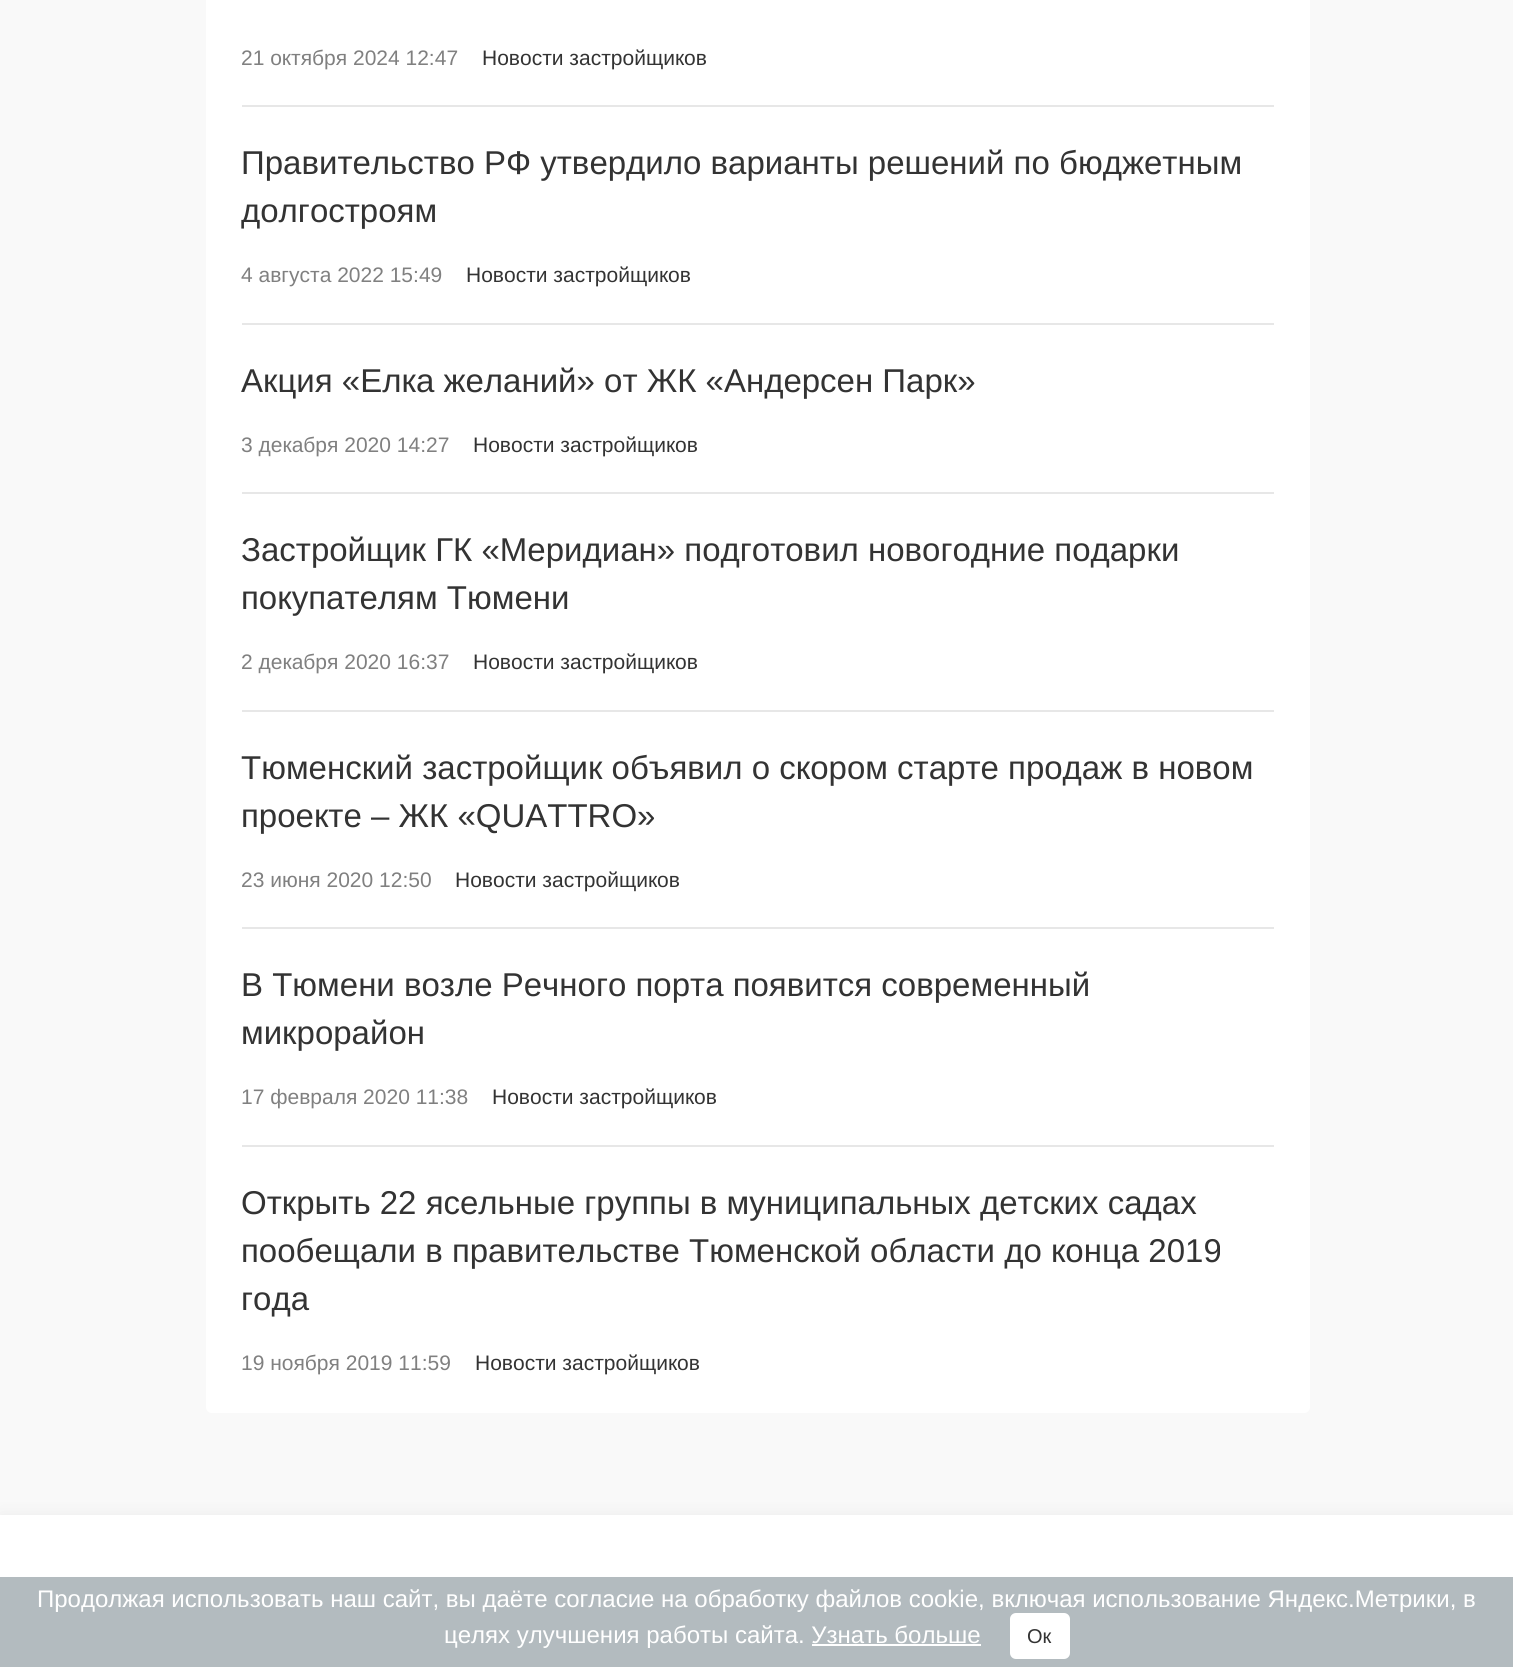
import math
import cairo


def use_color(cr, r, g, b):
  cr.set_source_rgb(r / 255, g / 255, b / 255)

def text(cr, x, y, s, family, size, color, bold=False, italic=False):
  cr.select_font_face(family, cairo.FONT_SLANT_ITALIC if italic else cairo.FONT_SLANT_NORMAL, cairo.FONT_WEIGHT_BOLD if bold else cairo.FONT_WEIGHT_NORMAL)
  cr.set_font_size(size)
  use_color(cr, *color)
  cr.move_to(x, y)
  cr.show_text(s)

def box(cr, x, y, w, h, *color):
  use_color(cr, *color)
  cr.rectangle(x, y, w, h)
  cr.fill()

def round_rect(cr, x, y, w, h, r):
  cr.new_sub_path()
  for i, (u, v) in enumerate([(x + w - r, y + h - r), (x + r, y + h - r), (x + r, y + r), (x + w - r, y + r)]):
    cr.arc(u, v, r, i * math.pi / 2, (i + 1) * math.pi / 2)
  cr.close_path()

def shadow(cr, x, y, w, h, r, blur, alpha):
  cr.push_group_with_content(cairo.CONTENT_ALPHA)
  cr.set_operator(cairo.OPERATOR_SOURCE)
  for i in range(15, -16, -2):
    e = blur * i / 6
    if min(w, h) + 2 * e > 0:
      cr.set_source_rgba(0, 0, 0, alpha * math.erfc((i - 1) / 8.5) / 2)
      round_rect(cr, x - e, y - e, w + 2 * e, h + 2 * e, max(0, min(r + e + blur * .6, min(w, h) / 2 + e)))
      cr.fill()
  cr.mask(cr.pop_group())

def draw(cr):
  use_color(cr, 249, 249, 249)
  cr.paint()
  use_color(cr, 255, 255, 255)
  round_rect(cr, 206, -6, 1104, 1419, 6)
  cr.fill()
  box(cr, 242, 105, 1032, 2, 231, 231, 231)
  box(cr, 242, 323, 1032, 2, 231, 231, 231)
  box(cr, 242, 492, 1032, 2, 231, 231, 231)
  box(cr, 242, 710, 1032, 2, 231, 231, 231)
  box(cr, 242, 927, 1032, 2, 231, 231, 231)
  box(cr, 242, 1145, 1032, 2, 231, 231, 231)
  use_color(cr, 0, 0, 0)
  shadow(cr, 0, 1515, 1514, 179, 0, 9, 0.06)
  box(cr, 0, 1515, 1513, 152, 255, 255, 255)
  cr.set_source_rgba(0.576, 0.624, 0.643, 0.7)
  cr.rectangle(0, 1577, 1513, 90)
  cr.fill()
  use_color(cr, 255, 255, 255)
  round_rect(cr, 1010, 1613, 60, 46, 6)
  cr.fill()
  box(cr, 812, 1644, 169, 2, 255, 255, 255)
  text(cr, 241, 65, "21 октября 2024 12:47", "Liberation Sans", 21, (128, 128, 128))
  text(cr, 482, 65, "Новости застройщиков", "Liberation Sans", 21, (51, 51, 51))
  text(cr, 241, 174, "Правительство РФ утвердило варианты решений по бюджетным", "Liberation Sans", 33, (51, 51, 51))
  text(cr, 241, 222, "долгостроям", "Liberation Sans", 33, (51, 51, 51))
  text(cr, 241, 282, "4 августа 2022 15:49", "Liberation Sans", 21, (128, 128, 128))
  text(cr, 466, 282, "Новости застройщиков", "Liberation Sans", 21, (51, 51, 51))
  text(cr, 241, 392, "Акция «Елка желаний» от ЖК «Андерсен Парк»", "Liberation Sans", 33, (51, 51, 51))
  text(cr, 241, 452, "3 декабря 2020 14:27", "Liberation Sans", 21, (128, 128, 128))
  text(cr, 473, 452, "Новости застройщиков", "Liberation Sans", 21, (51, 51, 51))
  text(cr, 241, 561, "Застройщик ГК «Меридиан» подготовил новогодние подарки", "Liberation Sans", 33, (51, 51, 51))
  text(cr, 241, 609, "покупателям Тюмени", "Liberation Sans", 33, (51, 51, 51))
  text(cr, 241, 669, "2 декабря 2020 16:37", "Liberation Sans", 21, (128, 128, 128))
  text(cr, 473, 669, "Новости застройщиков", "Liberation Sans", 21, (51, 51, 51))
  text(cr, 241, 779, "Тюменский застройщик объявил о скором старте продаж в новом", "Liberation Sans", 33, (51, 51, 51))
  text(cr, 241, 827, "проекте – ЖК «QUATTRO»", "Liberation Sans", 33, (51, 51, 51))
  text(cr, 241, 887, "23 июня 2020 12:50", "Liberation Sans", 21, (128, 128, 128))
  text(cr, 455, 887, "Новости застройщиков", "Liberation Sans", 21, (51, 51, 51))
  text(cr, 241, 996, "В Тюмени возле Речного порта появится современный", "Liberation Sans", 33, (51, 51, 51))
  text(cr, 241, 1044, "микрорайон", "Liberation Sans", 33, (51, 51, 51))
  text(cr, 241, 1104, "17 февраля 2020 11:38", "Liberation Sans", 21, (128, 128, 128))
  text(cr, 492, 1104, "Новости застройщиков", "Liberation Sans", 21, (51, 51, 51))
  text(cr, 241, 1214, "Открыть 22 ясельные группы в муниципальных детских садах", "Liberation Sans", 33, (51, 51, 51))
  text(cr, 241, 1262, "пообещали в правительстве Тюменской области до конца 2019", "Liberation Sans", 33, (51, 51, 51))
  text(cr, 241, 1310, "года", "Liberation Sans", 33, (51, 51, 51))
  text(cr, 241, 1370, "19 ноября 2019 11:59", "Liberation Sans", 21, (128, 128, 128))
  text(cr, 475, 1370, "Новости застройщиков", "Liberation Sans", 21, (51, 51, 51))
  text(cr, 37, 1607, "Продолжая использовать наш сайт, вы даёте согласие на обработку файлов cookie, включая использование Яндекс.Метрики, в", "Liberation Sans", 24, (255, 255, 255))
  text(cr, 444, 1643, "целях улучшения работы сайта. Узнать больше", "Liberation Sans", 24, (255, 255, 255))
  text(cr, 1027, 1643, "Ок", "Liberation Sans", 20, (51, 51, 51))


surface = cairo.ImageSurface(cairo.FORMAT_RGB24, 1513, 1667)
cr = cairo.Context(surface)
options = cairo.FontOptions()
options.set_hint_metrics(cairo.HINT_METRICS_OFF)
options.set_hint_style(cairo.HINT_STYLE_NONE)
cr.set_font_options(options)
cr.set_miter_limit(4)
draw(cr)
surface.write_to_png("out.png")
